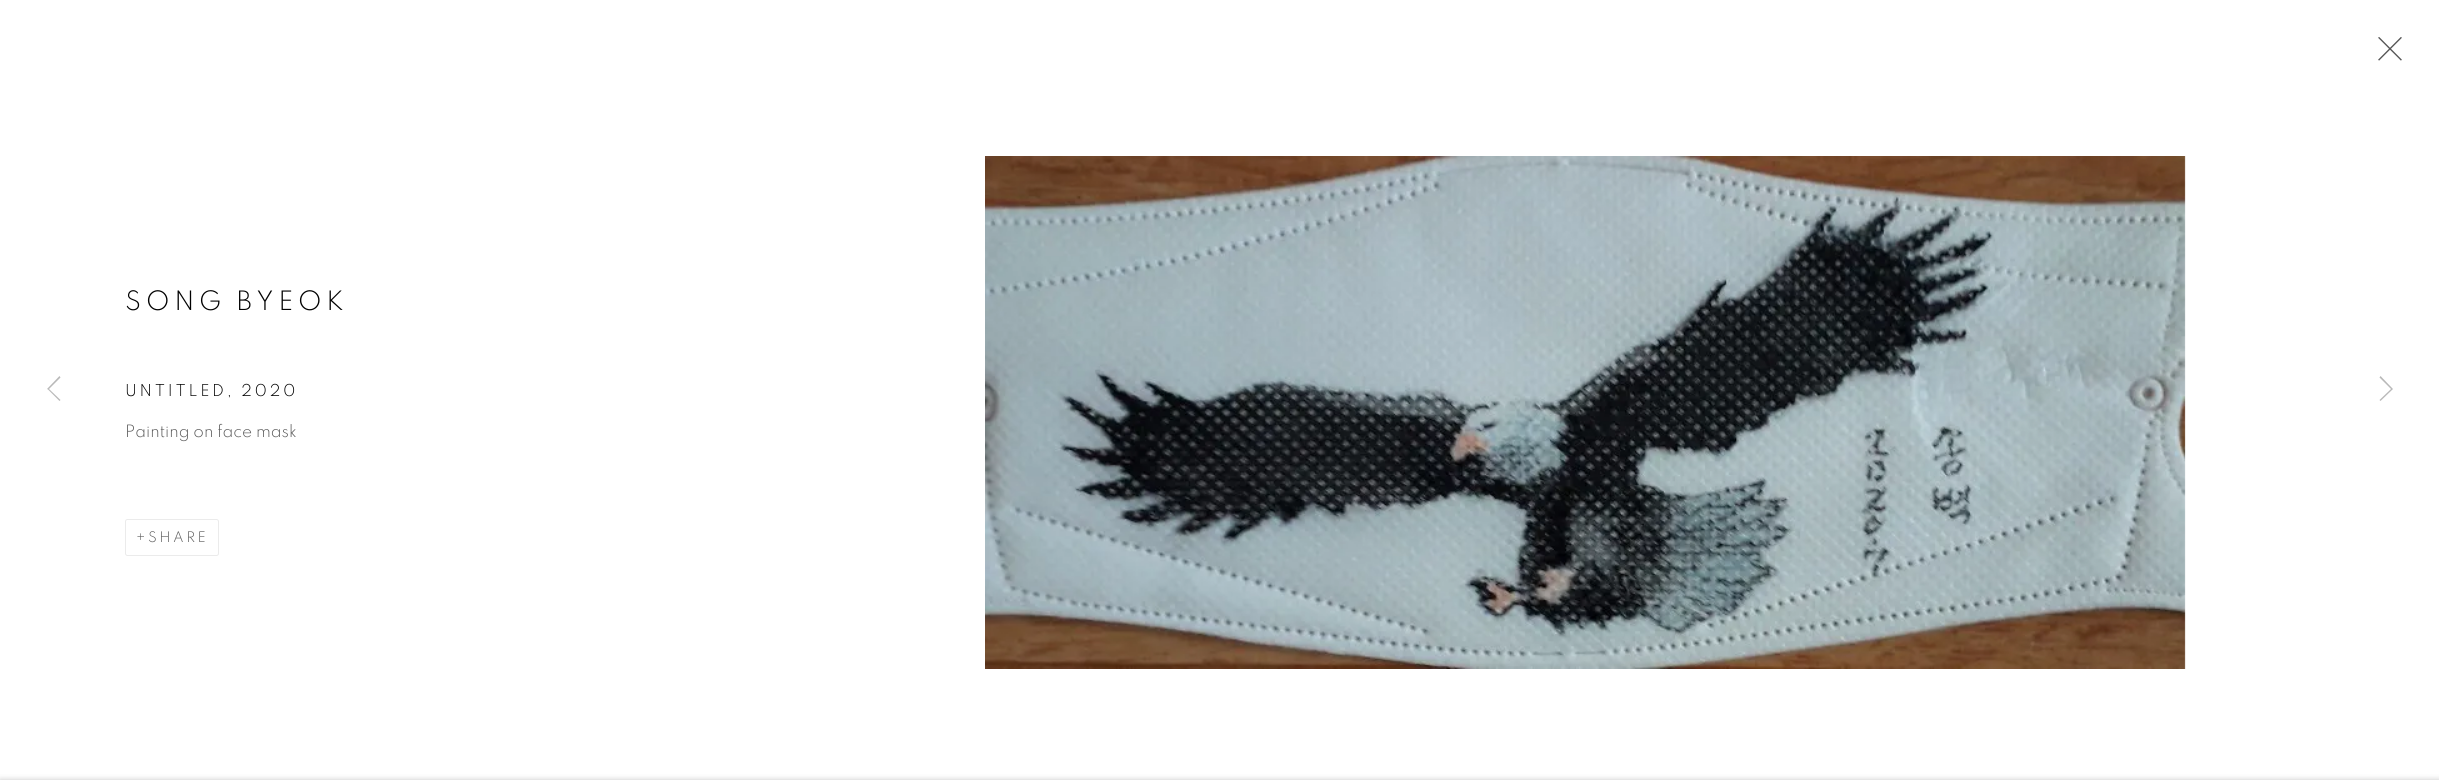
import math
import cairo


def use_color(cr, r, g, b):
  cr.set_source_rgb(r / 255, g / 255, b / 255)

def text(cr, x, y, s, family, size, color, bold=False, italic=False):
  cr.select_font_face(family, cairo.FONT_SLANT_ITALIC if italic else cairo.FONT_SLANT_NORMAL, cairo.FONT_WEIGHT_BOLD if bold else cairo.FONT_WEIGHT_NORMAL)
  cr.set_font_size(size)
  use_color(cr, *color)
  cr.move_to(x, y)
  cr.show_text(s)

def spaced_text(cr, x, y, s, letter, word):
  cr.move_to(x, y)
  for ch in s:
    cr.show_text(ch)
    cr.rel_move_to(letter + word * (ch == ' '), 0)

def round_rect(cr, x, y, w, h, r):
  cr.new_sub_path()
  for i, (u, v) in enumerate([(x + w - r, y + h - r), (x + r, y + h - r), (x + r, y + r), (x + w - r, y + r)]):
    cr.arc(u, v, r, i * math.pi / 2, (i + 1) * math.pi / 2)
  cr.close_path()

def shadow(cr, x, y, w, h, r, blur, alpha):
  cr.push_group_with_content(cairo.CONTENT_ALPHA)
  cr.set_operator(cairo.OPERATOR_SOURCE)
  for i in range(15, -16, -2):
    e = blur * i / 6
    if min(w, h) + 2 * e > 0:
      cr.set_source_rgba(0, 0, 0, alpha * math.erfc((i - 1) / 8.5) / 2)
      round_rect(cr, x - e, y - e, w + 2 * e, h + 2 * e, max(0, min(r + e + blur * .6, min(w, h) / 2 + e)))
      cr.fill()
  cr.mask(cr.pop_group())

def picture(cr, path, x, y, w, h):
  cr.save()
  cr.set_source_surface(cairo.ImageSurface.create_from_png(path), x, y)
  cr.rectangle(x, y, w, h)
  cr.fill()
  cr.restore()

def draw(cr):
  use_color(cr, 255, 255, 255)
  cr.paint()
  picture(cr, "img_01.png", 2378, 37, 24, 24)
  round_rect(cr, 125.5, 519.5, 93, 36, 2)
  use_color(cr, 235, 235, 235)
  cr.set_line_width(1)
  cr.stroke()
  picture(cr, "img_02.png", 985, 156, 1201, 513)
  use_color(cr, 185, 185, 185)
  cr.new_path()
  cr.move_to(48, 389.5)
  cr.line_to(59.5, 401)
  cr.line_to(60.5, 400)
  cr.line_to(49, 389)
  cr.line_to(60.5, 377.5)
  cr.line_to(59.5, 376)
  cr.line_to(47, 389)
  cr.close_path()
  cr.fill()
  cr.new_path()
  cr.move_to(2393, 389)
  cr.line_to(2380.5, 376)
  cr.line_to(2379.5, 377.5)
  cr.line_to(2391, 389)
  cr.line_to(2379.5, 400)
  cr.line_to(2380.5, 401)
  cr.close_path()
  cr.fill()
  use_color(cr, 0, 0, 0)
  shadow(cr, 0, 780, 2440, 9, 0, 3, 0.23)
  cr.select_font_face("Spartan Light")
  cr.set_font_size(27.5)
  use_color(cr, 1, 1, 1)
  spaced_text(cr, 125, 310, "SONG BYEOK", 4.5, 0)
  cr.set_font_size(16.9)
  spaced_text(cr, 125, 396, "UNTITLED, 2020", 2.75, 0)
  text(cr, 125, 437, "Painting on face mask", "Spartan Light", 17.5, (88, 88, 88))
  cr.set_font_size(15)
  spaced_text(cr, 136, 542, "+SHARE", 2.5, 0)


surface = cairo.ImageSurface(cairo.FORMAT_RGB24, 2439, 780)
cr = cairo.Context(surface)
options = cairo.FontOptions()
options.set_hint_metrics(cairo.HINT_METRICS_OFF)
options.set_hint_style(cairo.HINT_STYLE_NONE)
cr.set_font_options(options)
cr.set_miter_limit(4)
draw(cr)
surface.write_to_png("out.png")
